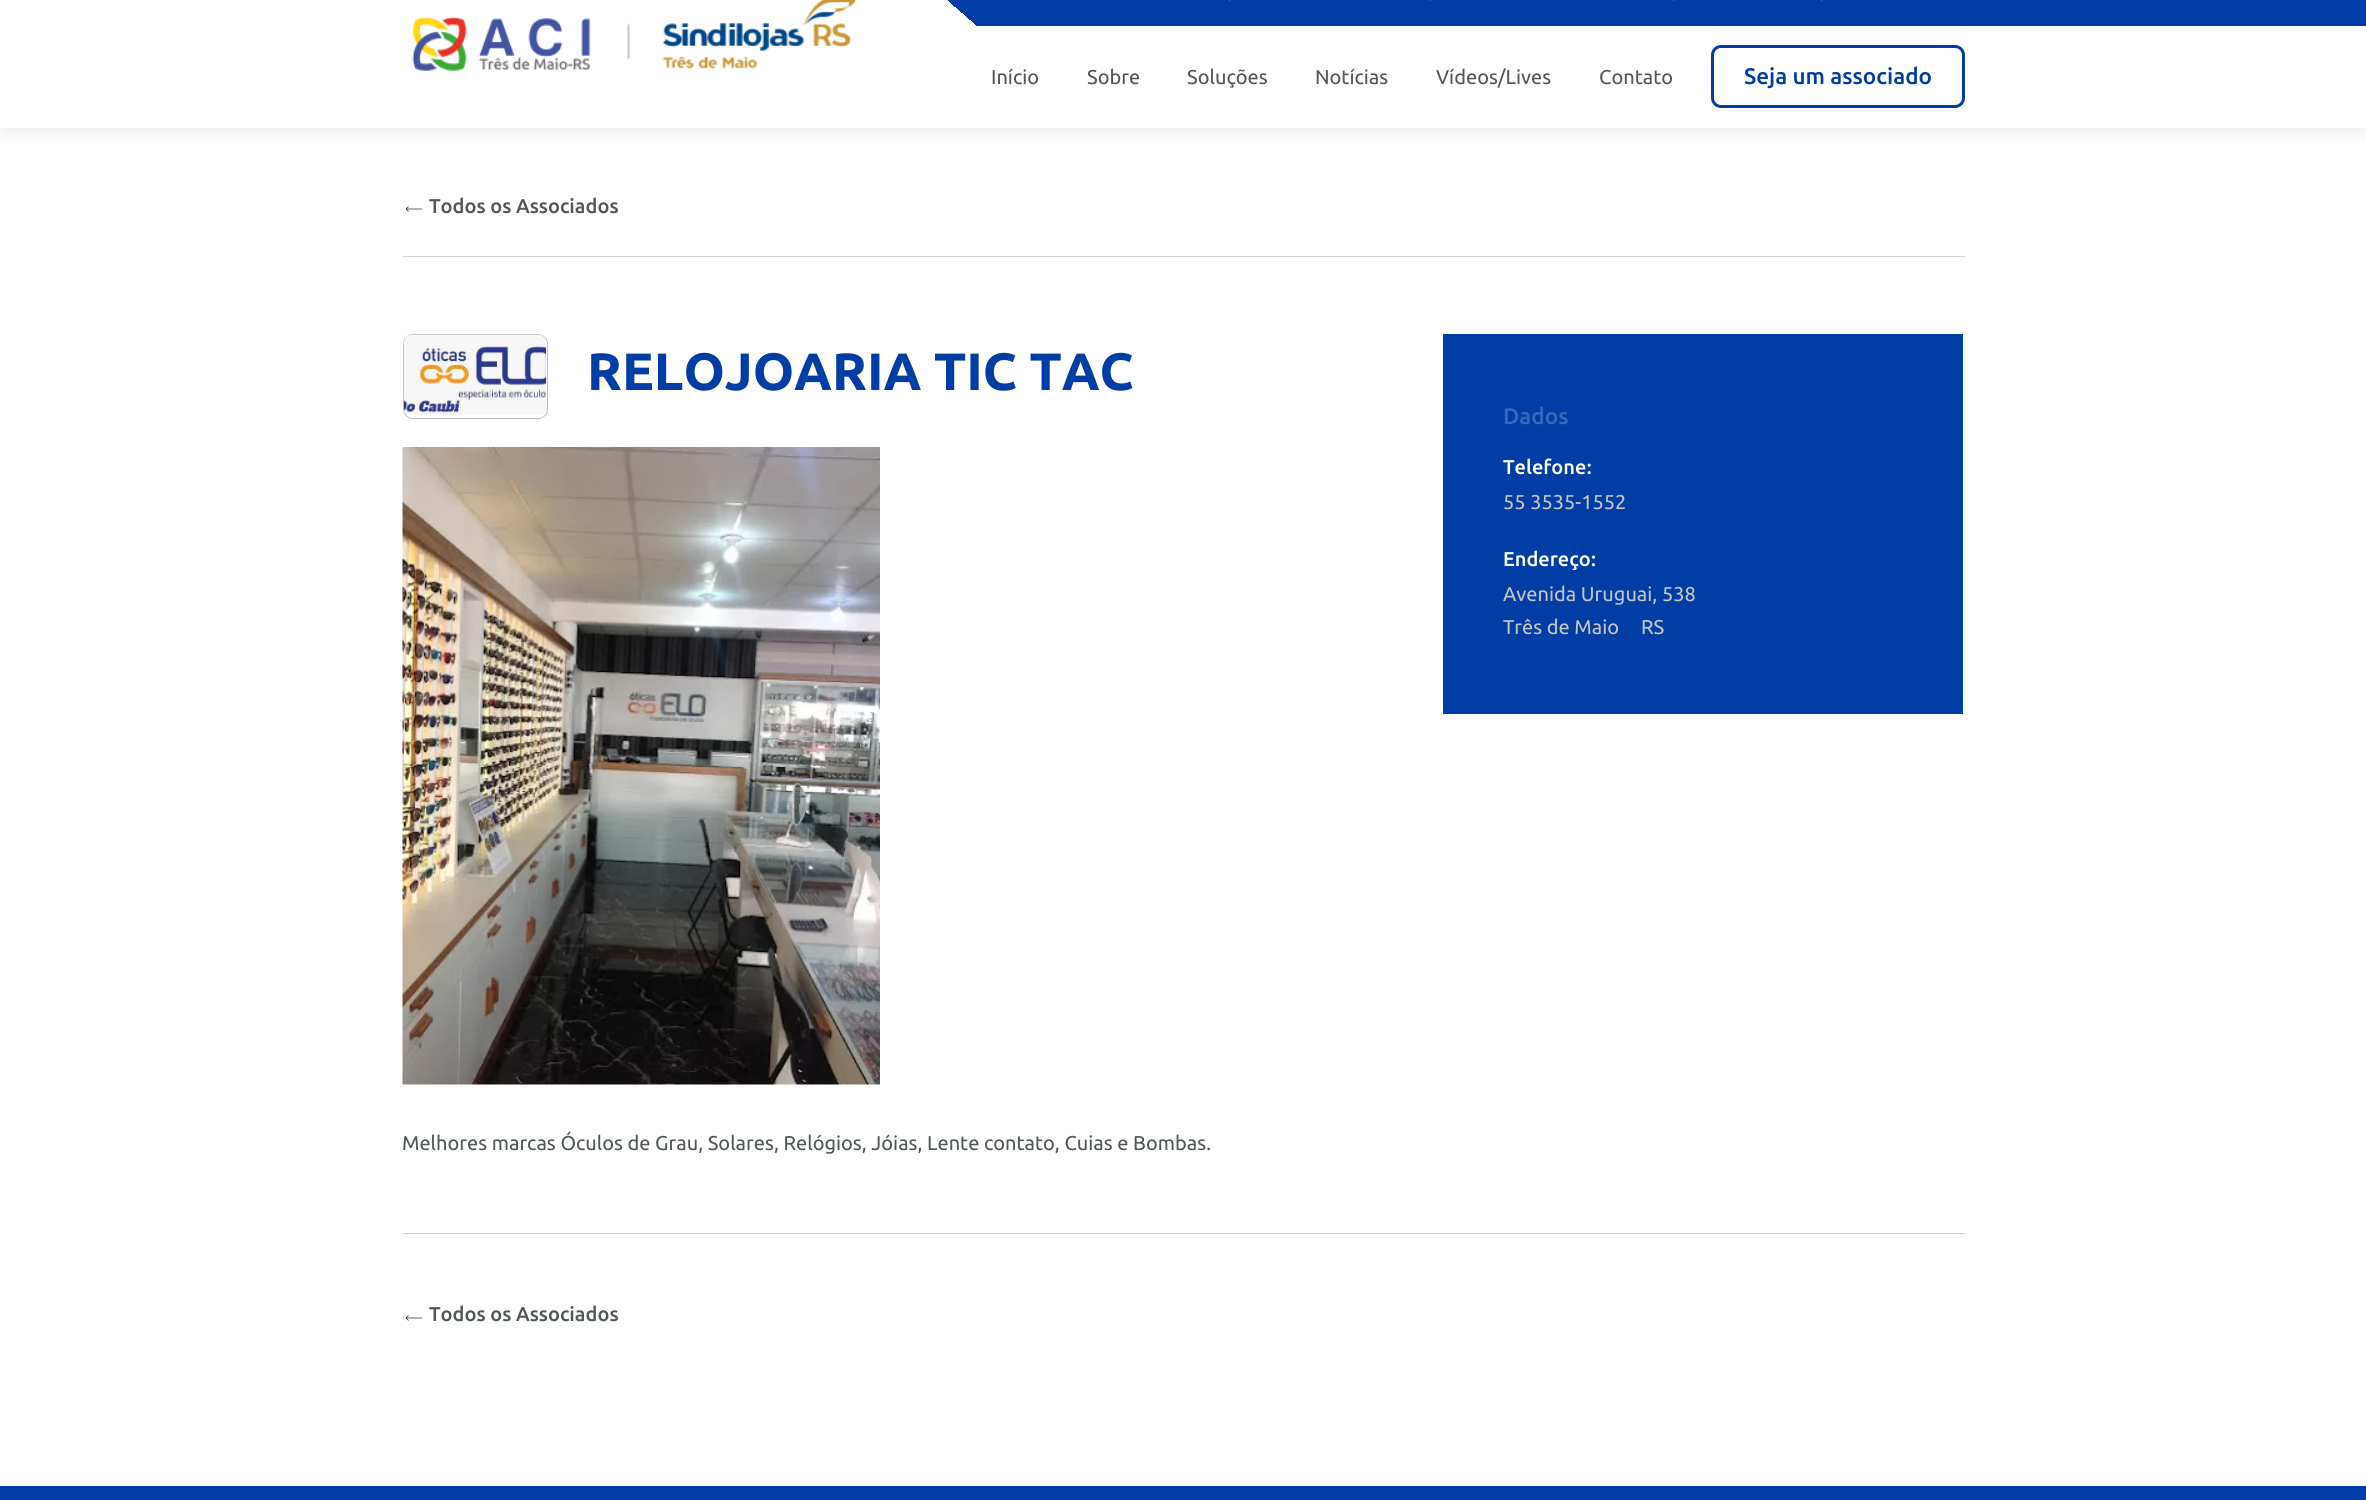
import math
import cairo


def use_color(cr, r, g, b):
  cr.set_source_rgb(r / 255, g / 255, b / 255)

def text(cr, x, y, s, family, size, color, bold=False, italic=False):
  cr.select_font_face(family, cairo.FONT_SLANT_ITALIC if italic else cairo.FONT_SLANT_NORMAL, cairo.FONT_WEIGHT_BOLD if bold else cairo.FONT_WEIGHT_NORMAL)
  cr.set_font_size(size)
  use_color(cr, *color)
  cr.move_to(x, y)
  cr.show_text(s)

def box(cr, x, y, w, h, *color):
  use_color(cr, *color)
  cr.rectangle(x, y, w, h)
  cr.fill()

def round_rect(cr, x, y, w, h, r):
  cr.new_sub_path()
  for i, (u, v) in enumerate([(x + w - r, y + h - r), (x + r, y + h - r), (x + r, y + r), (x + w - r, y + r)]):
    cr.arc(u, v, r, i * math.pi / 2, (i + 1) * math.pi / 2)
  cr.close_path()

def shadow(cr, x, y, w, h, r, blur, alpha):
  cr.push_group_with_content(cairo.CONTENT_ALPHA)
  cr.set_operator(cairo.OPERATOR_SOURCE)
  for i in range(15, -16, -2):
    e = blur * i / 6
    if min(w, h) + 2 * e > 0:
      cr.set_source_rgba(0, 0, 0, alpha * math.erfc((i - 1) / 8.5) / 2)
      round_rect(cr, x - e, y - e, w + 2 * e, h + 2 * e, max(0, min(r + e + blur * .6, min(w, h) / 2 + e)))
      cr.fill()
  cr.mask(cr.pop_group())

def picture(cr, path, x, y, w, h):
  cr.save()
  cr.set_source_surface(cairo.ImageSurface.create_from_png(path), x, y)
  cr.rectangle(x, y, w, h)
  cr.fill()
  cr.restore()

def draw(cr):
  use_color(cr, 255, 255, 255)
  cr.paint()
  use_color(cr, 0, 0, 0)
  shadow(cr, 0, -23, 2366, 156, 0, 7.5, 0.07)
  box(cr, 0, 26, 2366, 102, 255, 255, 255)
  gradient = cairo.LinearGradient(1689, -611, 677, 595)
  gradient.add_color_stop_rgba(0.48, 0, 0.239, 0.647, 1)
  gradient.add_color_stop_rgba(0.48, 1, 1, 1, 1)
  cr.set_source(gradient)
  cr.rectangle(0, 0, 2366, 26)
  cr.fill()
  gradient = cairo.LinearGradient(1537, -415, 830, 398)
  gradient.add_color_stop_rgba(0.65, 0, 0.239, 0.647, 1)
  gradient.add_color_stop_rgba(0.65, 1, 1, 1, 1)
  cr.set_source(gradient)
  cr.rectangle(948, 0, 324, 26)
  cr.fill()
  picture(cr, "img_01.png", 412, 0, 445, 71)
  box(cr, 1229, 0, 1, 1, 79, 110, 162)
  box(cr, 1430, 0, 1, 1, 79, 110, 162)
  box(cr, 1673, 0, 1, 1, 79, 110, 162)
  box(cr, 1821, 0, 1, 1, 79, 110, 162)
  round_rect(cr, 1712.5, 46.5, 251, 60, 8.5)
  use_color(cr, 0, 61, 165)
  cr.set_line_width(3)
  cr.stroke()
  cr.new_path()
  cr.move_to(406, 209)
  cr.line_to(422, 209)
  cr.move_to(406, 209)
  cr.line_to(408.5, 206.5)
  cr.move_to(406, 209)
  cr.line_to(408.5, 211.5)
  use_color(cr, 29, 29, 29)
  cr.set_line_width(0.7)
  cr.stroke()
  box(cr, 403, 256, 1562, 1, 211, 211, 211)
  round_rect(cr, 403.5, 334.5, 144, 84, 9.5)
  use_color(cr, 194, 194, 194)
  cr.set_line_width(1)
  cr.stroke()
  picture(cr, "img_02.png", 403, 334, 144, 81)
  picture(cr, "img_03.png", 402, 447, 478, 638)
  box(cr, 1443, 334, 520, 380, 0, 61, 165)
  box(cr, 403, 1233, 1562, 1, 211, 211, 211)
  cr.new_path()
  cr.move_to(406, 1318)
  cr.line_to(422, 1318)
  cr.move_to(406, 1318)
  cr.line_to(408.5, 1315.5)
  cr.move_to(406, 1318)
  cr.line_to(408.5, 1320.5)
  use_color(cr, 29, 29, 29)
  cr.set_line_width(0.7)
  cr.stroke()
  box(cr, 0, 1486, 2366, 14, 0, 61, 165)
  text(cr, 991, 84, "Início", "Ubuntu", 20, (80, 87, 89))
  text(cr, 1087, 84, "Sobre", "Ubuntu", 20, (80, 87, 89))
  text(cr, 1187, 84, "Soluções", "Ubuntu", 20, (80, 87, 89))
  text(cr, 1315, 84, "Notícias", "Ubuntu", 20, (80, 87, 89))
  text(cr, 1436, 84, "Vídeos/Lives", "Ubuntu", 20, (80, 87, 89))
  text(cr, 1599, 84, "Contato", "Ubuntu", 20, (80, 87, 89))
  text(cr, 1744, 84, "Seja um associado", "Ubuntu Medium", 22.5, (0, 61, 165))
  text(cr, 429, 213, "Todos os Associados", "Ubuntu Medium", 20, (80, 87, 89))
  text(cr, 587, 390, "RELOJOARIA TIC TAC", "Ubuntu", 52.5, (0, 61, 165), bold=True)
  text(cr, 402, 1150, "Melhores marcas Óculos de Grau, Solares, Relógios, Jóias, Lente contato, Cuias e Bombas.", "Ubuntu", 20, (80, 87, 89))
  text(cr, 1503, 424, "Dados", "Ubuntu Medium", 22.5, (56, 104, 185))
  text(cr, 1503, 474, "Telefone:", "Ubuntu Medium", 20, (255, 255, 255))
  text(cr, 1503, 509, "55 3535-1552", "Ubuntu", 20, (197, 197, 197))
  text(cr, 1503, 566, "Endereço:", "Ubuntu Medium", 20, (255, 255, 255))
  text(cr, 1503, 601, "Avenida Uruguai, 538", "Ubuntu", 20, (197, 197, 197))
  text(cr, 1503, 634, "Três de Maio", "Ubuntu", 20, (197, 197, 197))
  text(cr, 1641, 634, "RS", "Ubuntu", 20, (197, 197, 197))
  text(cr, 429, 1321, "Todos os Associados", "Ubuntu Medium", 20, (80, 87, 89))


surface = cairo.ImageSurface(cairo.FORMAT_RGB24, 2366, 1500)
cr = cairo.Context(surface)
options = cairo.FontOptions()
options.set_hint_metrics(cairo.HINT_METRICS_OFF)
options.set_hint_style(cairo.HINT_STYLE_NONE)
cr.set_font_options(options)
cr.set_miter_limit(4)
draw(cr)
surface.write_to_png("out.png")
